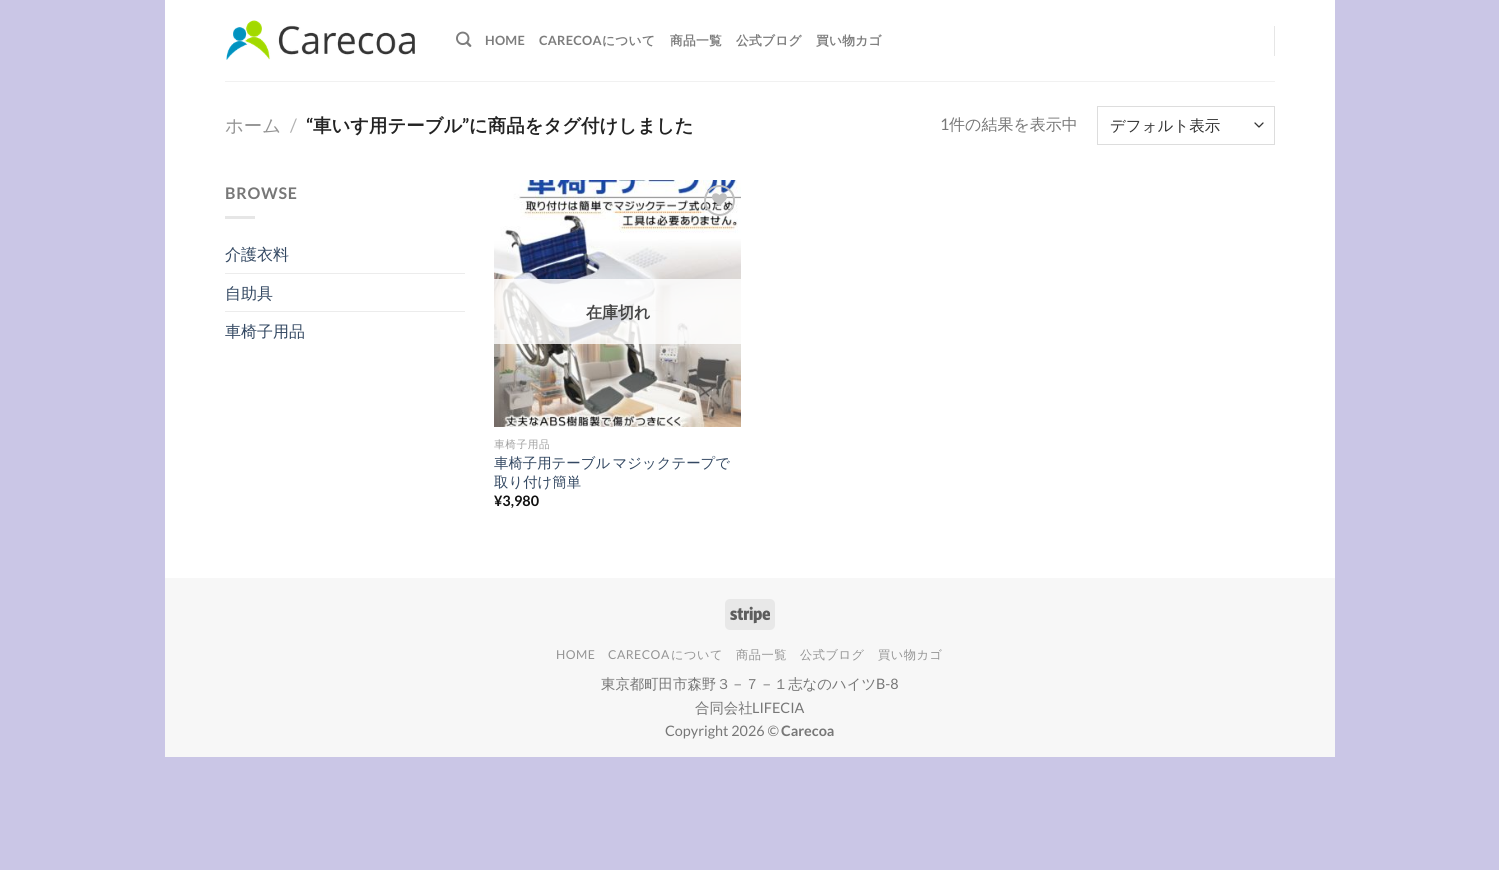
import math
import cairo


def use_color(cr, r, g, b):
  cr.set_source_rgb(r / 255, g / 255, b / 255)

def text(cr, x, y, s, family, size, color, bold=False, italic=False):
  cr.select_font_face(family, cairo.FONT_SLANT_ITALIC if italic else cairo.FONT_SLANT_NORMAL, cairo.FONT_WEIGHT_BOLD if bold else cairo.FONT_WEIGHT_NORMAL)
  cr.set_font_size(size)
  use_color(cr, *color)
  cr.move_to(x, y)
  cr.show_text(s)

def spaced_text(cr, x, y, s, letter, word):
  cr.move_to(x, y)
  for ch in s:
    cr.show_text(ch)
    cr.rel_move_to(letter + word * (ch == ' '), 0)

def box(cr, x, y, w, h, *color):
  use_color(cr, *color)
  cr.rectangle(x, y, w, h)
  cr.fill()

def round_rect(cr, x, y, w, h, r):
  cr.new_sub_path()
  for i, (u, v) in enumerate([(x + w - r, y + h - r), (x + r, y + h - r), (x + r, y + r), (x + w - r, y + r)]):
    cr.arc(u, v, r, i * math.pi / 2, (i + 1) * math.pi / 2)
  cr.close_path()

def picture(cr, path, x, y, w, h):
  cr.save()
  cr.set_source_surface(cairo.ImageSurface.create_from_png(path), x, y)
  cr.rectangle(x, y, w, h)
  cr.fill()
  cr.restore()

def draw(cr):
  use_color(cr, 202, 198, 230)
  cr.paint()
  box(cr, 165, 0, 1170, 578, 255, 255, 255)
  picture(cr, "img_01.png", 226, 20, 189, 40)
  picture(cr, "img_02.png", 456, 31, 16, 16)
  box(cr, 1274, 26, 1, 30, 230, 230, 230)
  box(cr, 225, 81, 1050, 1, 241, 241, 241)
  cr.new_path()
  cr.move_to(1255, 123)
  cr.line_to(1259, 127)
  cr.line_to(1263, 123)
  use_color(cr, 51, 51, 51)
  cr.set_line_width(1.3)
  cr.set_line_cap(cairo.LINE_CAP_ROUND)
  cr.set_line_join(cairo.LINE_JOIN_ROUND)
  cr.stroke()
  cr.rectangle(1097.5, 106.5, 177, 38)
  use_color(cr, 221, 221, 221)
  cr.set_line_width(1)
  cr.set_line_cap(cairo.LINE_CAP_BUTT)
  cr.set_line_join(cairo.LINE_JOIN_MITER)
  cr.stroke()
  box(cr, 225, 216, 30, 3, 230, 230, 230)
  box(cr, 225, 273, 240, 1, 236, 236, 236)
  box(cr, 225, 311, 240, 1, 236, 236, 236)
  picture(cr, "img_03.png", 494, 180, 247, 247)
  cr.arc(719.5, 200.5, 14.5, 0, 2 * math.pi)
  use_color(cr, 192, 192, 192)
  cr.set_line_width(2)
  cr.stroke()
  picture(cr, "img_04.png", 712, 193, 15, 13)
  cr.set_source_rgba(1, 1, 1, 0.81)
  cr.rectangle(494, 279, 247, 65)
  cr.fill()
  box(cr, 165, 578, 1170, 179, 247, 247, 247)
  use_color(cr, 232, 232, 232)
  round_rect(cr, 725, 599, 50, 31, 5)
  cr.fill()
  picture(cr, "img_05.png", 730, 606, 40, 18)
  cr.select_font_face("Lato", cairo.FONT_SLANT_NORMAL, cairo.FONT_WEIGHT_BOLD)
  cr.set_font_size(12.75)
  use_color(cr, 125, 125, 125)
  spaced_text(cr, 485, 45, "HOME", 0.25, 0)
  spaced_text(cr, 539, 45, "CARECOA", 0.25, 0)
  cr.select_font_face("WenQuanYi Zen Hei", cairo.FONT_SLANT_NORMAL, cairo.FONT_WEIGHT_BOLD)
  spaced_text(cr, 602, 45, "について", 0.25, 0)
  spaced_text(cr, 670, 45, "商品一覧", 0.25, 0)
  spaced_text(cr, 736, 45, "公式ブログ", 0.25, 0)
  spaced_text(cr, 816, 45, "買い物カゴ", 0.25, 0)
  text(cr, 225, 132, "ホーム", "WenQuanYi Zen Hei Medium", 18.4, (148, 148, 148))
  text(cr, 290, 132, "/", "Lato", 18.4, (178, 178, 178))
  text(cr, 306, 132, "“", "Lato", 18.4, (34, 34, 34), bold=True)
  text(cr, 313, 132, "車いす用テーブル", "WenQuanYi Zen Hei", 18.4, (34, 34, 34), bold=True)
  text(cr, 462, 132, "”", "Lato", 18.4, (34, 34, 34), bold=True)
  text(cr, 469, 132, "に商品をタグ付けしました", "WenQuanYi Zen Hei", 18.4, (34, 34, 34), bold=True)
  text(cr, 940, 130, "1", "Lato", 16, (119, 119, 119))
  text(cr, 949, 130, "件の結果を表示中", "WenQuanYi Zen Hei Medium", 16, (119, 119, 119))
  text(cr, 1110, 131, "デフォルト表示", "WenQuanYi Zen Hei Medium", 15.5, (51, 51, 51))
  cr.select_font_face("Lato", cairo.FONT_SLANT_NORMAL, cairo.FONT_WEIGHT_BOLD)
  cr.set_font_size(16)
  use_color(cr, 119, 119, 119)
  spaced_text(cr, 225, 199, "BROWSE", 0.75, 0)
  text(cr, 225, 260, "介護衣料", "WenQuanYi Zen Hei Medium", 16, (51, 72, 98))
  text(cr, 225, 299, "自助具", "WenQuanYi Zen Hei Medium", 16, (51, 72, 98))
  text(cr, 225, 337, "車椅子用品", "WenQuanYi Zen Hei Medium", 16, (51, 72, 98))
  text(cr, 586, 318, "在庫切れ", "WenQuanYi Zen Hei", 16, (70, 70, 70), bold=True)
  cr.select_font_face("WenQuanYi Zen Hei Medium")
  cr.set_font_size(10.75)
  use_color(cr, 160, 160, 160)
  spaced_text(cr, 494, 448, "車椅子用品", 0.5, 0)
  cr.set_font_size(14.4)
  use_color(cr, 51, 72, 98)
  spaced_text(cr, 494, 468, "車椅子用テーブル マジックテープで", 0, -2)
  text(cr, 494, 487, "取り付け簡単", "WenQuanYi Zen Hei Medium", 14.4, (51, 72, 98))
  text(cr, 494, 506, "¥3,980", "Lato", 14.4, (17, 17, 17), bold=True)
  cr.select_font_face("Lato")
  cr.set_font_size(12.25)
  use_color(cr, 148, 148, 148)
  spaced_text(cr, 556, 659, "HOME", 0.5, 0)
  spaced_text(cr, 608, 659, "CARECOA", 0.5, 0)
  cr.select_font_face("WenQuanYi Zen Hei Medium")
  spaced_text(cr, 671, 659, "について", 0.5, 0)
  spaced_text(cr, 736, 659, "商品一覧", 0.5, 0)
  spaced_text(cr, 800, 659, "公式ブログ", 0.5, 0)
  spaced_text(cr, 878, 659, "買い物カゴ", 0.5, 0)
  text(cr, 601, 689, "東京都町田市森野３－７－１志なのハイツ", "WenQuanYi Zen Hei Medium", 14.4, (119, 119, 119))
  text(cr, 876, 689, "B-8", "Lato", 14.4, (119, 119, 119))
  text(cr, 695, 713, "合同会社", "WenQuanYi Zen Hei Medium", 14.4, (119, 119, 119))
  text(cr, 752, 713, "LIFECIA", "Lato", 14.4, (119, 119, 119))
  text(cr, 665, 736, "Copyright 2026 ©", "Lato", 14.4, (119, 119, 119))
  text(cr, 781, 736, "Carecoa", "Lato", 14.4, (119, 119, 119), bold=True)


surface = cairo.ImageSurface(cairo.FORMAT_RGB24, 1499, 870)
cr = cairo.Context(surface)
options = cairo.FontOptions()
options.set_hint_metrics(cairo.HINT_METRICS_OFF)
options.set_hint_style(cairo.HINT_STYLE_NONE)
cr.set_font_options(options)
cr.set_miter_limit(4)
draw(cr)
surface.write_to_png("out.png")
